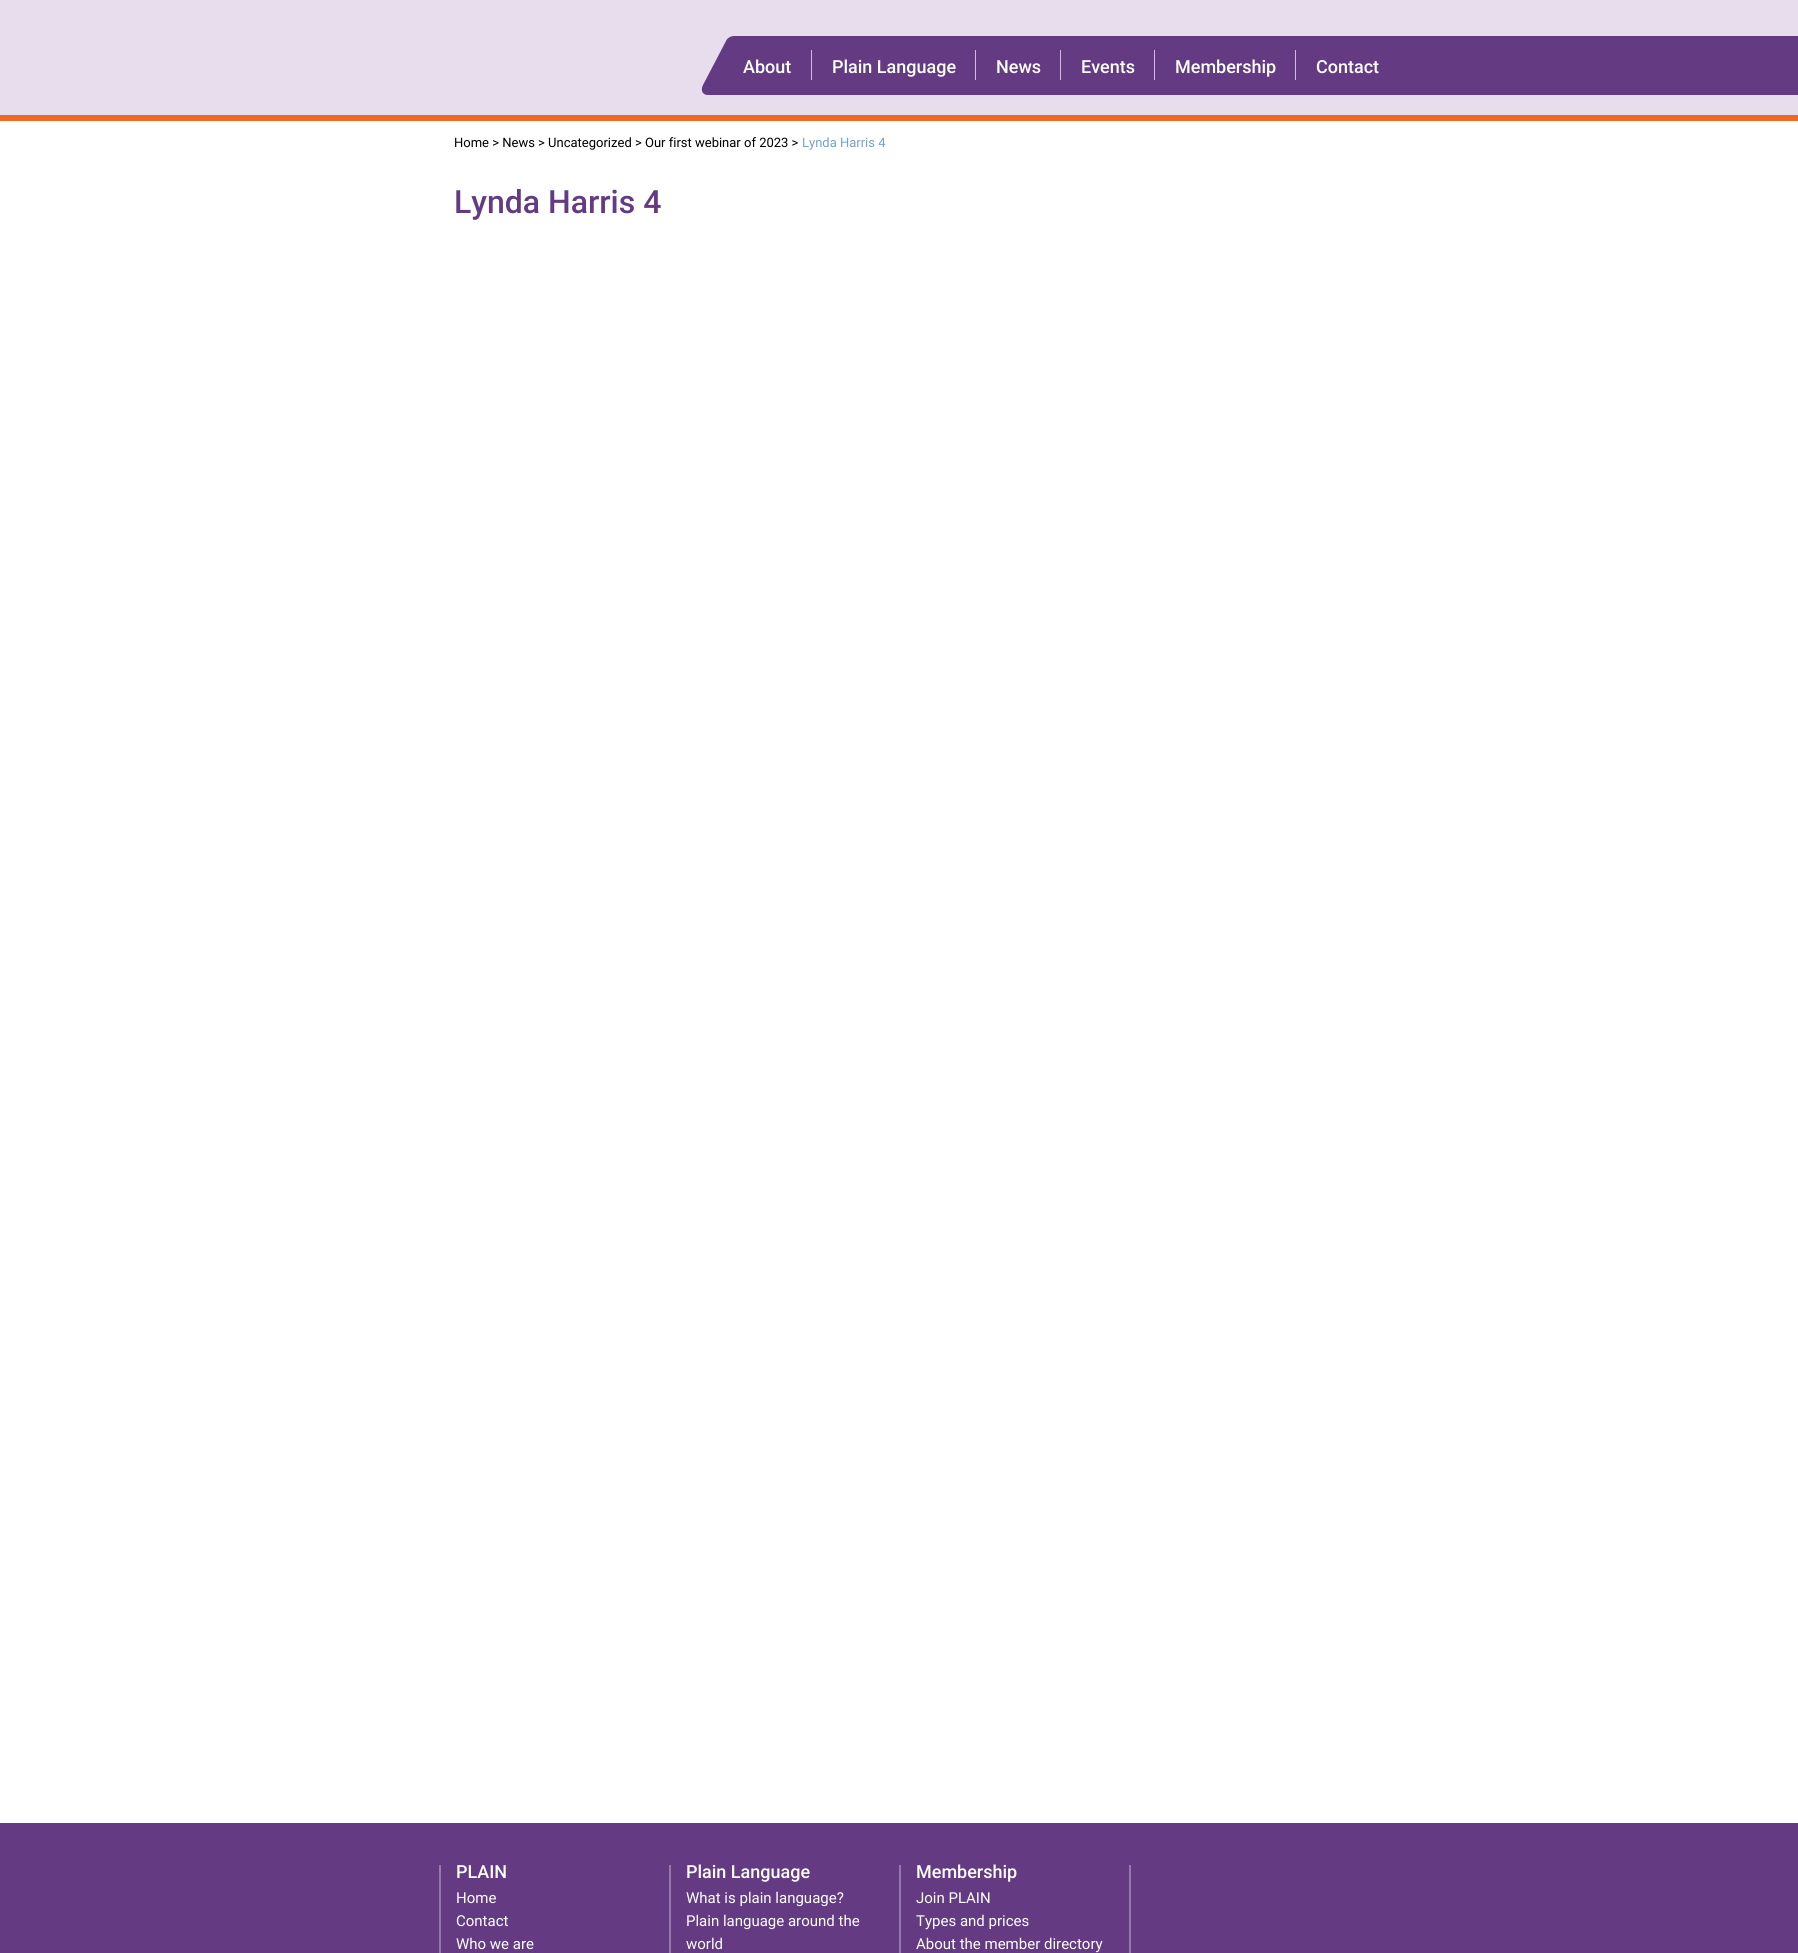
import math
import cairo


def use_color(cr, r, g, b):
  cr.set_source_rgb(r / 255, g / 255, b / 255)

def text(cr, x, y, s, family, size, color, bold=False, italic=False):
  cr.select_font_face(family, cairo.FONT_SLANT_ITALIC if italic else cairo.FONT_SLANT_NORMAL, cairo.FONT_WEIGHT_BOLD if bold else cairo.FONT_WEIGHT_NORMAL)
  cr.set_font_size(size)
  use_color(cr, *color)
  cr.move_to(x, y)
  cr.show_text(s)

def box(cr, x, y, w, h, *color):
  use_color(cr, *color)
  cr.rectangle(x, y, w, h)
  cr.fill()

def draw(cr):
  use_color(cr, 255, 255, 255)
  cr.paint()
  box(cr, 0, 0, 1798, 115, 232, 221, 236)
  box(cr, 0, 115, 1798, 6, 238, 103, 36)
  box(cr, 1349, 36, 449, 59, 100, 59, 130)
  cr.new_path()
  cr.move_to(734, 36)
  cr.line_to(1379, 36)
  cr.line_to(1349, 95)
  cr.line_to(708, 95)
  cr.curve_to(703, 95, 700, 91, 703, 85)
  cr.line_to(726, 41)
  cr.curve_to(727, 38, 731, 36, 734, 36)
  cr.close_path()
  cr.fill()
  box(cr, 811, 50, 1, 30, 209, 187, 218)
  box(cr, 975, 50, 1, 30, 209, 187, 218)
  box(cr, 1060, 50, 1, 30, 209, 187, 218)
  box(cr, 1154, 50, 1, 30, 209, 187, 218)
  box(cr, 1295, 50, 1, 30, 209, 187, 218)
  box(cr, 0, 1823, 1798, 130, 100, 59, 130)
  box(cr, 439, 1865, 2, 88, 148, 120, 169)
  box(cr, 669, 1865, 2, 88, 148, 120, 169)
  box(cr, 899, 1865, 2, 88, 148, 120, 169)
  box(cr, 1129, 1865, 2, 88, 148, 120, 169)
  text(cr, 743, 73, "About", "Roboto Medium", 18, (255, 255, 255))
  text(cr, 832, 73, "Plain Language", "Roboto Medium", 18, (255, 255, 255))
  text(cr, 996, 73, "News", "Roboto Medium", 18, (255, 255, 255))
  text(cr, 1081, 73, "Events", "Roboto Medium", 18, (255, 255, 255))
  text(cr, 1175, 73, "Membership", "Roboto Medium", 18, (255, 255, 255))
  text(cr, 1316, 73, "Contact", "Roboto Medium", 18, (255, 255, 255))
  text(cr, 454, 147, "Home > News > Uncategorized > Our first webinar of 2023 >", "Roboto", 13, (0, 0, 0))
  text(cr, 802, 147, "Lynda Harris 4", "Roboto", 13, (117, 162, 204))
  text(cr, 454, 213, "Lynda Harris 4", "Roboto Medium", 32, (100, 59, 130))
  text(cr, 456, 1878, "PLAIN", "Roboto Medium", 18, (255, 255, 255))
  text(cr, 456, 1903, "Home", "Roboto", 15, (255, 255, 255))
  text(cr, 456, 1926, "Contact", "Roboto", 15, (255, 255, 255))
  text(cr, 456, 1949, "Who we are", "Roboto", 15, (255, 255, 255))
  text(cr, 686, 1878, "Plain Language", "Roboto Medium", 18, (255, 255, 255))
  text(cr, 686, 1903, "What is plain language?", "Roboto", 15, (255, 255, 255))
  text(cr, 686, 1926, "Plain language around the", "Roboto", 15, (255, 255, 255))
  text(cr, 686, 1949, "world", "Roboto", 15, (255, 255, 255))
  text(cr, 916, 1878, "Membership", "Roboto Medium", 18, (255, 255, 255))
  text(cr, 916, 1903, "Join PLAIN", "Roboto", 15, (255, 255, 255))
  text(cr, 916, 1926, "Types and prices", "Roboto", 15, (255, 255, 255))
  text(cr, 916, 1949, "About the member directory", "Roboto", 15, (255, 255, 255))


surface = cairo.ImageSurface(cairo.FORMAT_RGB24, 1798, 1953)
cr = cairo.Context(surface)
options = cairo.FontOptions()
options.set_hint_metrics(cairo.HINT_METRICS_OFF)
options.set_hint_style(cairo.HINT_STYLE_NONE)
cr.set_font_options(options)
cr.set_miter_limit(4)
draw(cr)
surface.write_to_png("out.png")
